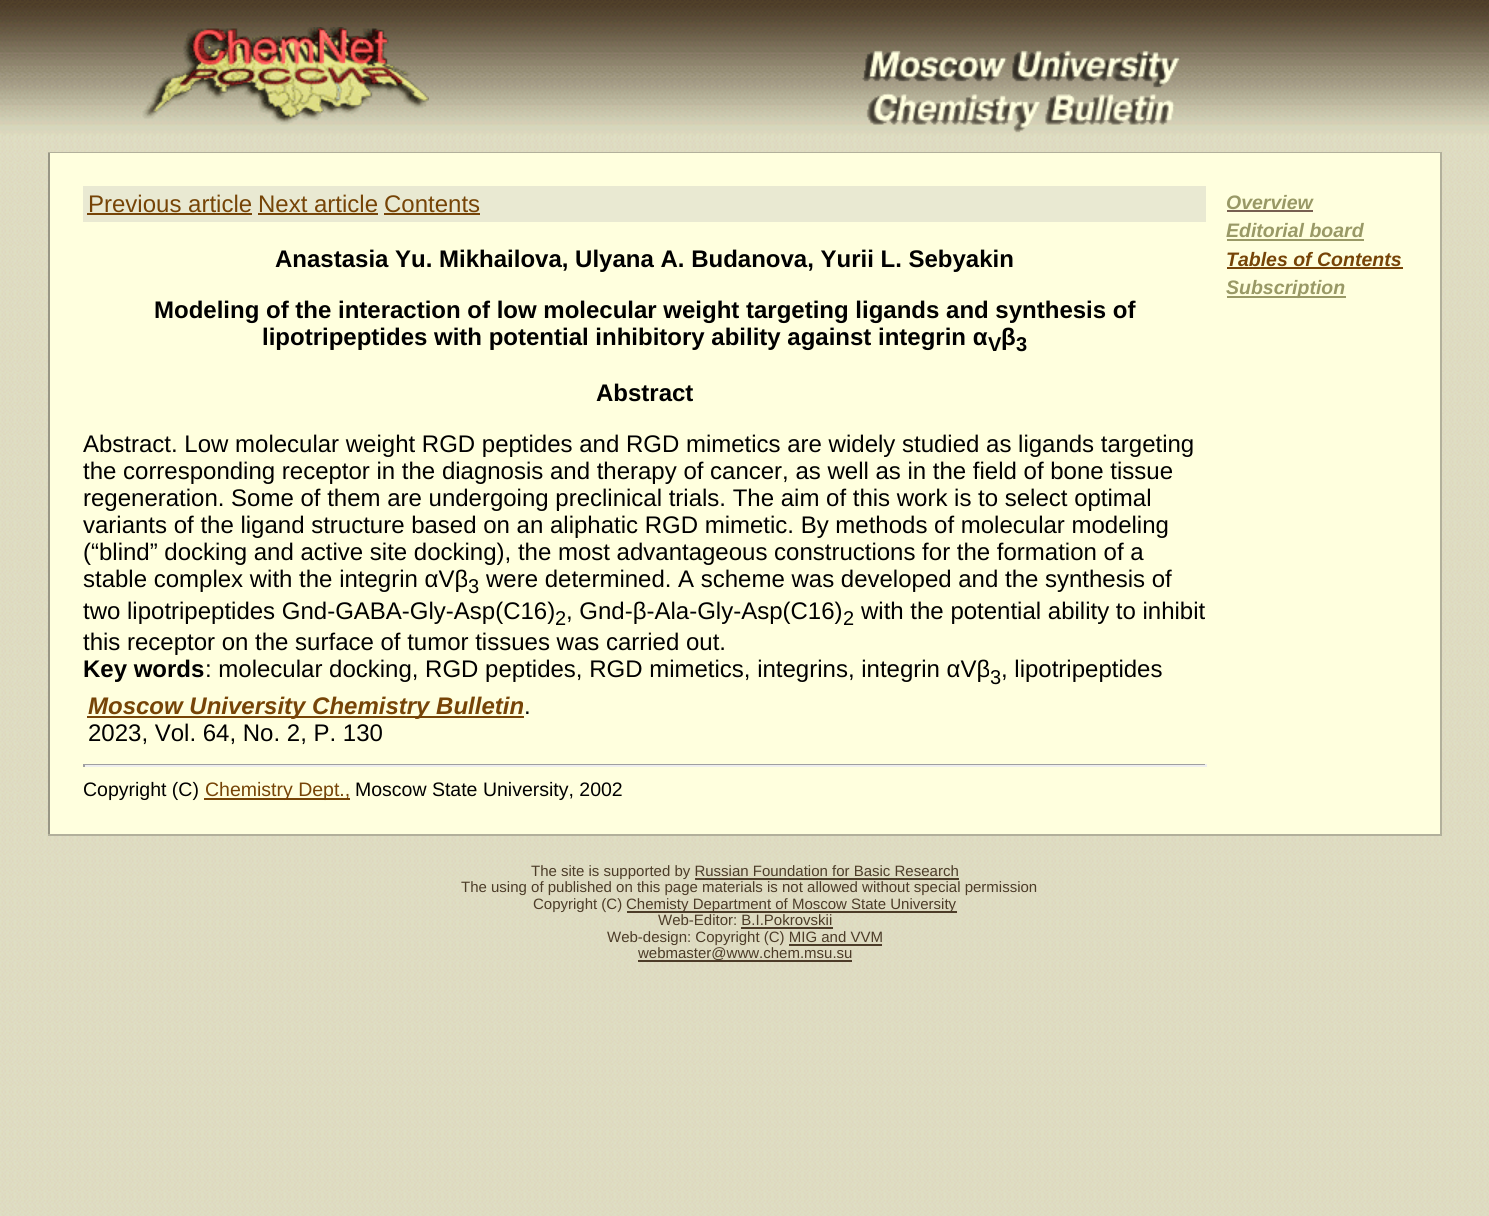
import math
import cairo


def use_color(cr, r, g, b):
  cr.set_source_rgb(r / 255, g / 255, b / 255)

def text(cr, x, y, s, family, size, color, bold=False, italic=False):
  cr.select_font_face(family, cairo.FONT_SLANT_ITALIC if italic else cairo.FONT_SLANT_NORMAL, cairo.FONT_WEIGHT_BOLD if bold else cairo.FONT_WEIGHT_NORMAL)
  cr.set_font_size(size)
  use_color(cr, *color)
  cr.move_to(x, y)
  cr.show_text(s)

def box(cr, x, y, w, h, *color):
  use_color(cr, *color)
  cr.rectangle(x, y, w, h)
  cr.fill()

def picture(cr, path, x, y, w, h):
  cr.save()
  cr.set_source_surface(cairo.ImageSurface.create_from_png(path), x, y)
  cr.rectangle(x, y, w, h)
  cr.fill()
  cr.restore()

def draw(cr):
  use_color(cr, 255, 255, 255)
  cr.paint()
  picture(cr, "img_01.png", 0, 0, 1489, 1216)
  picture(cr, "img_02.png", 142, 27, 287, 98)
  picture(cr, "img_03.png", 862, 50, 319, 83)
  box(cr, 48, 152, 1394, 1, 178, 176, 155)
  box(cr, 48, 153, 2, 681, 152, 150, 133)
  box(cr, 50, 153, 1390, 681, 255, 255, 222)
  box(cr, 83, 186, 1123, 36, 233, 233, 210)
  box(cr, 87, 213, 165, 2, 118, 68, 7)
  box(cr, 258, 213, 120, 2, 118, 68, 7)
  box(cr, 384, 213, 96, 2, 118, 68, 7)
  box(cr, 87, 716, 437, 2, 118, 68, 7)
  box(cr, 83, 764, 1123, 1, 159, 159, 159)
  box(cr, 1205, 764, 2, 3, 238, 238, 238)
  box(cr, 83, 765, 1123, 2, 238, 238, 238)
  box(cr, 83, 764, 2, 3, 159, 159, 159)
  box(cr, 204, 798, 146, 2, 118, 68, 7)
  box(cr, 1227, 210, 86, 2, 119, 96, 81)
  box(cr, 1227, 239, 137, 2, 153, 153, 102)
  box(cr, 1227, 267, 176, 2, 118, 68, 7)
  box(cr, 1227, 296, 119, 2, 153, 153, 102)
  box(cr, 1440, 153, 2, 681, 178, 176, 155)
  box(cr, 48, 834, 1394, 2, 178, 176, 155)
  box(cr, 695, 878, 264, 2, 76, 60, 40)
  box(cr, 627, 911, 330, 2, 76, 60, 40)
  box(cr, 741, 927, 92, 2, 76, 60, 40)
  box(cr, 789, 944, 93, 2, 76, 60, 40)
  box(cr, 638, 960, 214, 2, 76, 60, 40)
  text(cr, 88, 212, "Previous article", "Liberation Sans", 24, (118, 68, 7))
  text(cr, 258, 212, "Next article", "Liberation Sans", 24, (118, 68, 7))
  text(cr, 384, 212, "Contents", "Liberation Sans", 24, (118, 68, 7))
  text(cr, 275, 267, "Anastasia Yu. Mikhailova, Ulyana A. Budanova, Yurii L. Sebyakin", "Liberation Sans", 24, (0, 0, 0), bold=True)
  text(cr, 154, 318, "Modeling of the interaction of low molecular weight targeting ligands and synthesis of", "Liberation Sans", 24, (0, 0, 0), bold=True)
  text(cr, 262, 345, "lipotripeptides with potential inhibitory ability against integrin α", "Liberation Sans", 24, (0, 0, 0), bold=True)
  text(cr, 988, 351, "V", "Liberation Sans", 20, (0, 0, 0), bold=True)
  text(cr, 1001, 345, "β", "Liberation Sans", 24, (0, 0, 0), bold=True)
  text(cr, 1016, 351, "3", "Liberation Sans", 20, (0, 0, 0), bold=True)
  text(cr, 596, 401, "Abstract", "Liberation Sans", 24, (0, 0, 0), bold=True)
  text(cr, 83, 452, "Abstract. Low molecular weight RGD peptides and RGD mimetics are widely studied as ligands targeting", "Liberation Sans", 24, (0, 0, 0))
  text(cr, 83, 479, "the corresponding receptor in the diagnosis and therapy of cancer, as well as in the field of bone tissue", "Liberation Sans", 24, (0, 0, 0))
  text(cr, 83, 506, "regeneration. Some of them are undergoing preclinical trials. The aim of this work is to select optimal", "Liberation Sans", 24, (0, 0, 0))
  text(cr, 83, 533, "variants of the ligand structure based on an aliphatic RGD mimetic. By methods of molecular modeling", "Liberation Sans", 24, (0, 0, 0))
  text(cr, 83, 560, "(“blind” docking and active site docking), the most advantageous constructions for the formation of a", "Liberation Sans", 24, (0, 0, 0))
  text(cr, 83, 587, "stable complex with the integrin αVβ", "Liberation Sans", 24, (0, 0, 0))
  text(cr, 468, 593, "3", "Liberation Sans", 20, (0, 0, 0))
  text(cr, 486, 587, "were determined. A scheme was developed and the synthesis of", "Liberation Sans", 24, (0, 0, 0))
  text(cr, 83, 619, "two lipotripeptides Gnd-GABA-Gly-Asp(C16)", "Liberation Sans", 24, (0, 0, 0))
  text(cr, 555, 625, "2", "Liberation Sans", 20, (0, 0, 0))
  text(cr, 566, 619, ", Gnd-β-Ala-Gly-Asp(C16)", "Liberation Sans", 24, (0, 0, 0))
  text(cr, 843, 625, "2", "Liberation Sans", 20, (0, 0, 0))
  text(cr, 861, 619, "with the potential ability to inhibit", "Liberation Sans", 24, (0, 0, 0))
  text(cr, 83, 650, "this receptor on the surface of tumor tissues was carried out.", "Liberation Sans", 24, (0, 0, 0))
  text(cr, 83, 677, "Key words", "Liberation Sans", 24, (0, 0, 0), bold=True)
  text(cr, 205, 677, ": molecular docking, RGD peptides, RGD mimetics, integrins, integrin αVβ", "Liberation Sans", 24, (0, 0, 0))
  text(cr, 990, 684, "3", "Liberation Sans", 20, (0, 0, 0))
  text(cr, 1001, 677, ", lipotripeptides", "Liberation Sans", 24, (0, 0, 0))
  text(cr, 88, 714, "Moscow University Chemistry Bulletin", "Liberation Sans", 24, (118, 68, 7), bold=True, italic=True)
  text(cr, 524, 714, ".", "Liberation Sans", 24, (0, 0, 0))
  text(cr, 88, 741, "2023, Vol. 64, No. 2, P. 130", "Liberation Sans", 24, (0, 0, 0))
  text(cr, 83, 796, "Copyright (C)", "Liberation Sans", 19.5, (0, 0, 0))
  text(cr, 205, 796, "Chemistry Dept.,", "Liberation Sans", 19.5, (118, 68, 7))
  text(cr, 355, 796, "Moscow State University, 2002", "Liberation Sans", 19.5, (0, 0, 0))
  text(cr, 1226, 209, "Overview", "Liberation Sans", 19.5, (153, 153, 102), bold=True, italic=True)
  text(cr, 1226, 237, "Editorial board", "Liberation Sans", 19.5, (153, 153, 102), bold=True, italic=True)
  text(cr, 1226, 266, "Tables of Contents", "Liberation Sans", 19.5, (118, 68, 7), bold=True, italic=True)
  text(cr, 1226, 294, "Subscription", "Liberation Sans", 19.5, (153, 153, 102), bold=True, italic=True)
  text(cr, 531, 876, "The site is supported by Russian Foundation for Basic Research", "Liberation Sans", 15, (76, 60, 40))
  text(cr, 461, 892, "The using of published on this page materials is not allowed without special permission", "Liberation Sans", 15, (76, 60, 40))
  text(cr, 533, 909, "Copyright (C)", "Liberation Sans", 15, (76, 60, 40))
  text(cr, 626, 909, "Chemisty Department of Moscow State University", "Liberation Sans", 15, (76, 60, 40))
  text(cr, 658, 925, "Web-Editor: B.I.Pokrovskii", "Liberation Sans", 15, (76, 60, 40))
  text(cr, 607, 942, "Web-design: Copyright (C) MIG and VVM", "Liberation Sans", 15, (76, 60, 40))
  text(cr, 638, 958, "webmaster@www.chem.msu.su", "Liberation Sans", 15, (76, 60, 40))


surface = cairo.ImageSurface(cairo.FORMAT_RGB24, 1489, 1216)
cr = cairo.Context(surface)
options = cairo.FontOptions()
options.set_hint_metrics(cairo.HINT_METRICS_OFF)
options.set_hint_style(cairo.HINT_STYLE_NONE)
cr.set_font_options(options)
cr.set_miter_limit(4)
draw(cr)
surface.write_to_png("out.png")
